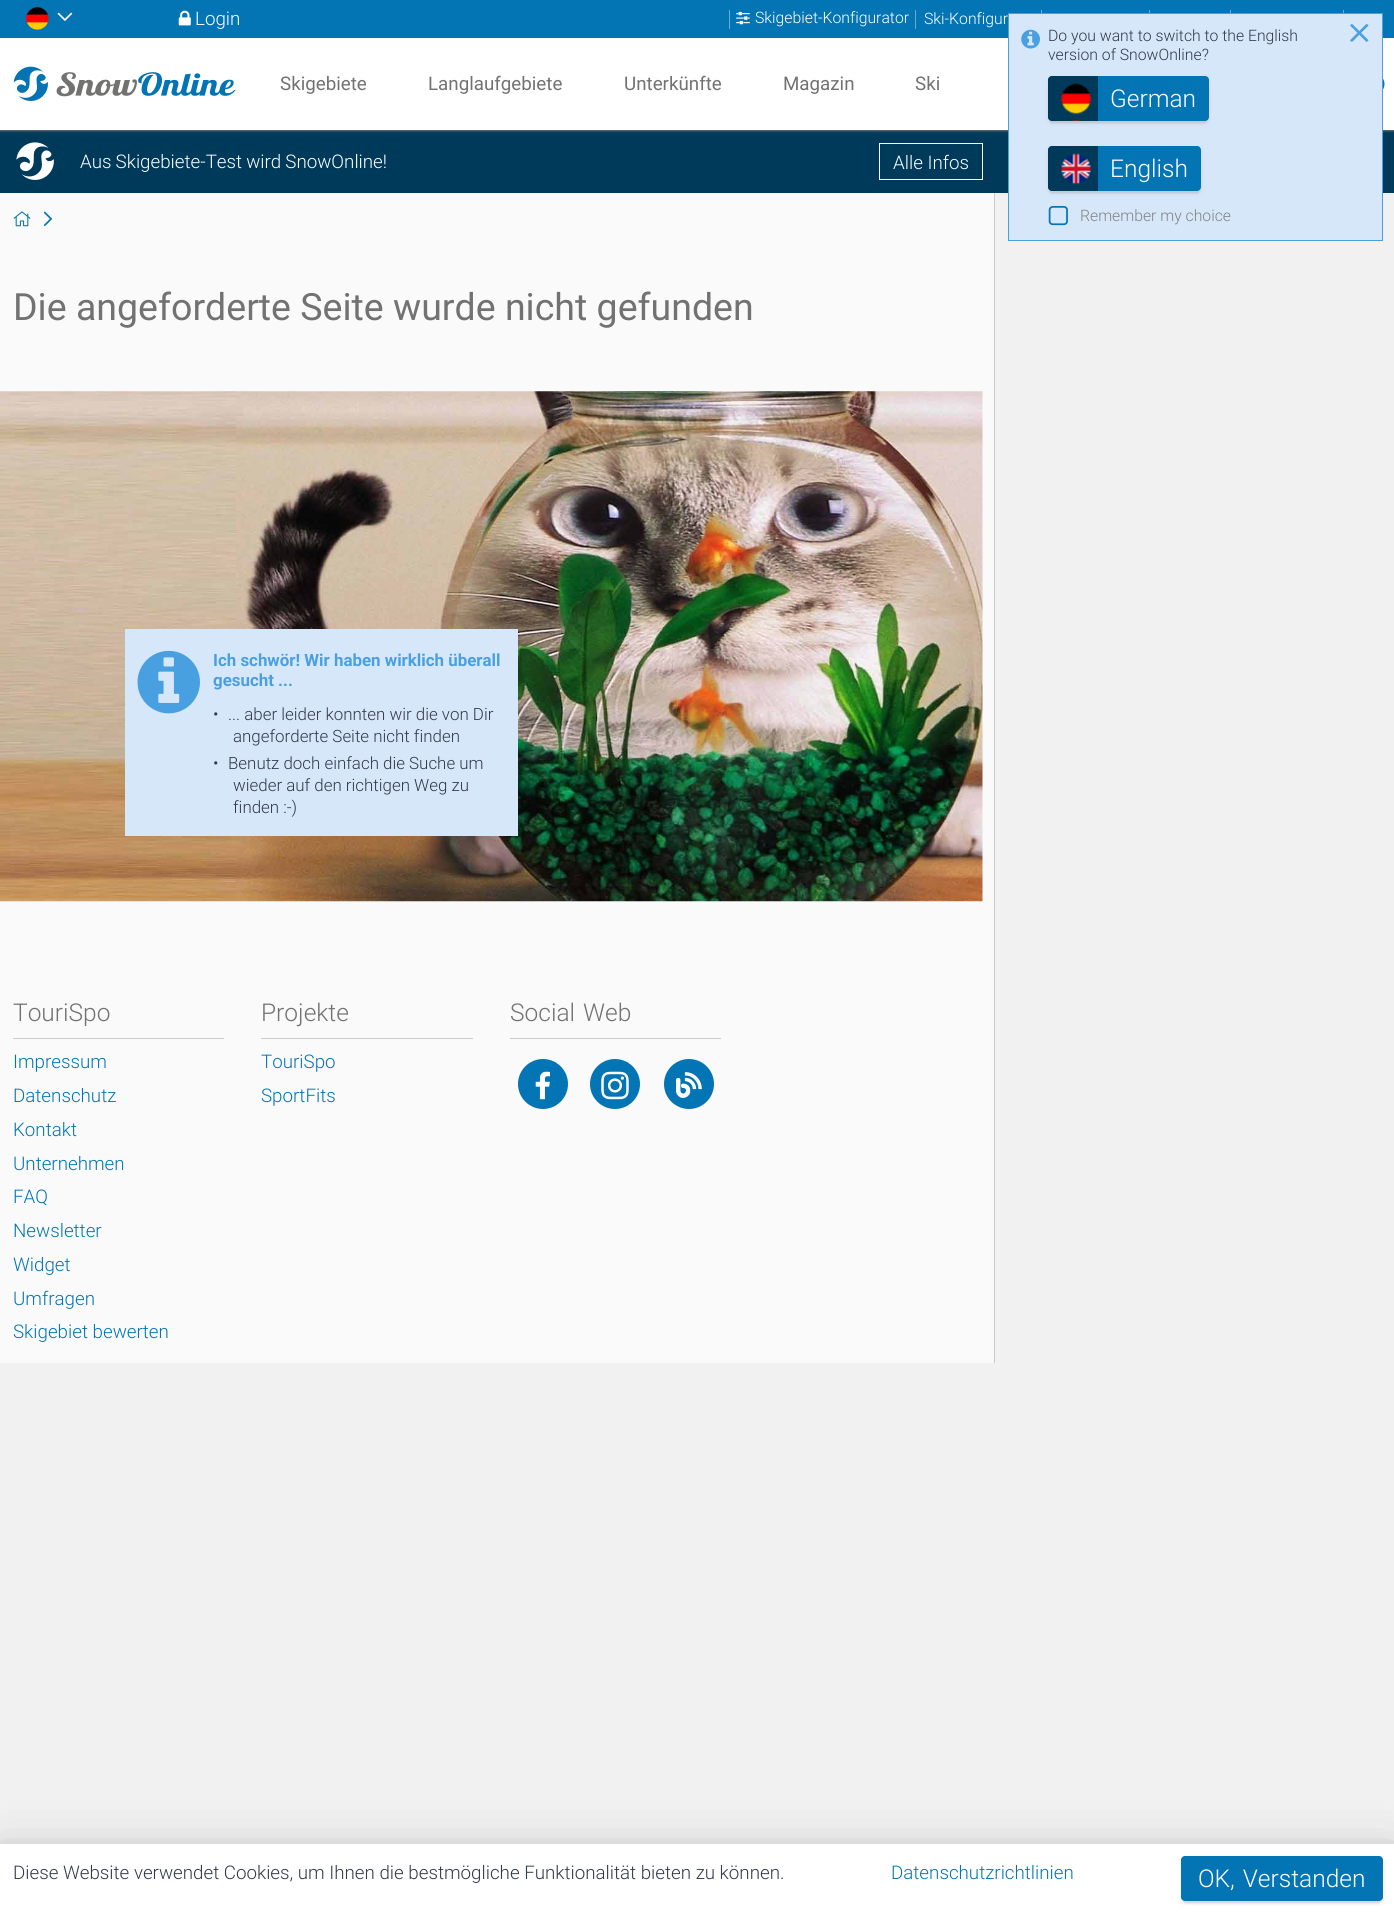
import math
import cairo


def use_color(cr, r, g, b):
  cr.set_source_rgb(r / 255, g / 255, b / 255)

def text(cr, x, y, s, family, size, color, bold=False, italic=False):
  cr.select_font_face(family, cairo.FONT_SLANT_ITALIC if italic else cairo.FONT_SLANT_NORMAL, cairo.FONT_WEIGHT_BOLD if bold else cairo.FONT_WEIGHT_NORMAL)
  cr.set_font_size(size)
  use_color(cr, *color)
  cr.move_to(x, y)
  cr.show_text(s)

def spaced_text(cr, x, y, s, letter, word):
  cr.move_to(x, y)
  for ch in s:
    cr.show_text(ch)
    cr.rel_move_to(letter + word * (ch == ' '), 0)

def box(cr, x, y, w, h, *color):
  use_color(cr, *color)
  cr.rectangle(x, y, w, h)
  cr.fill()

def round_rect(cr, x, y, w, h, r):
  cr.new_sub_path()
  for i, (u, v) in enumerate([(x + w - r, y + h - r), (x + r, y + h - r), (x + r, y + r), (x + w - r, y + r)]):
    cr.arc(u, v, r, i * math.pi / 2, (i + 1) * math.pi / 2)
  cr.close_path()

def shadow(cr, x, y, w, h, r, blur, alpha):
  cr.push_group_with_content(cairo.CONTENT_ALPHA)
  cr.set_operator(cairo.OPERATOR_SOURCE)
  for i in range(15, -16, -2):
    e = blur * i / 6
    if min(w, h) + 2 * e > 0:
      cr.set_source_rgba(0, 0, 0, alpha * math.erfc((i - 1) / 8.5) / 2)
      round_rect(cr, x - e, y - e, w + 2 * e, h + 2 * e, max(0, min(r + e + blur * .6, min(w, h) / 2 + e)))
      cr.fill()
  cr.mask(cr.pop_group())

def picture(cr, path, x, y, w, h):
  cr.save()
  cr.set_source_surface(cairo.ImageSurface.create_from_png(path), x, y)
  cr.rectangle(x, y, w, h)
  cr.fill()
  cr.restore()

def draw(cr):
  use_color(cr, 241, 241, 241)
  cr.paint()
  box(cr, 0, 130, 1394, 63, 0, 58, 90)
  use_color(cr, 114, 114, 114)
  shadow(cr, 0, 36, 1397, 95, 0, 1, 1)
  box(cr, 0, 0, 1394, 38, 3, 117, 180)
  picture(cr, "img_01.png", 25, 7, 24, 23)
  picture(cr, "img_02.png", 57, 12, 16, 9)
  picture(cr, "img_03.png", 178, 10, 13, 16)
  box(cr, 729, 10, 1, 19, 104, 172, 210)
  picture(cr, "img_04.png", 736, 11, 14, 14)
  box(cr, 915, 10, 1, 19, 104, 172, 210)
  box(cr, 1041, 10, 1, 3, 104, 172, 210)
  box(cr, 1149, 10, 1, 3, 104, 172, 210)
  box(cr, 1230, 10, 1, 3, 104, 172, 210)
  box(cr, 1343, 10, 1, 3, 104, 172, 210)
  box(cr, 0, 38, 1394, 92, 255, 255, 255)
  use_color(cr, 215, 231, 250)
  cr.rectangle(1008.5, 13.5, 374, 227)
  cr.fill_preserve()
  use_color(cr, 73, 160, 224)
  cr.set_line_width(1)
  cr.stroke()
  picture(cr, "img_05.png", 1021, 29, 19, 20)
  use_color(cr, 153, 153, 153)
  shadow(cr, 1048, 78, 161, 45, 4, 3, 0.12)
  shadow(cr, 1050, 83, 156, 40, 1, 0.5, 0.2)
  shadow(cr, 1048, 79, 161, 45, 4, 1, 0.14)
  use_color(cr, 3, 117, 180)
  round_rect(cr, 1048, 76, 161, 45, 4)
  cr.fill()
  use_color(cr, 0, 58, 90)
  cr.new_path()
  cr.move_to(1052, 76)
  cr.line_to(1098, 76)
  cr.line_to(1098, 121)
  cr.line_to(1052, 121)
  cr.curve_to(1050, 121, 1048, 119, 1048, 117)
  cr.line_to(1048, 80)
  cr.curve_to(1048, 78, 1050, 76, 1052, 76)
  cr.close_path()
  cr.fill()
  picture(cr, "img_06.png", 1060, 83, 32, 39)
  use_color(cr, 153, 153, 153)
  shadow(cr, 1048, 148, 153, 45, 4, 3, 0.12)
  shadow(cr, 1050, 153, 149, 40, 1, 0.5, 0.2)
  shadow(cr, 1048, 149, 153, 45, 4, 1, 0.14)
  use_color(cr, 3, 117, 180)
  round_rect(cr, 1048, 146, 153, 45, 4)
  cr.fill()
  use_color(cr, 0, 58, 90)
  cr.new_path()
  cr.move_to(1052, 146)
  cr.line_to(1098, 146)
  cr.line_to(1098, 191)
  cr.line_to(1052, 191)
  cr.curve_to(1050, 191, 1048, 189, 1048, 187)
  cr.line_to(1048, 150)
  cr.curve_to(1048, 148, 1050, 146, 1052, 146)
  cr.close_path()
  cr.fill()
  picture(cr, "img_07.png", 1060, 146, 32, 45)
  picture(cr, "img_08.png", 1048, 206, 20, 20)
  picture(cr, "img_09.png", 1350, 23, 19, 19)
  picture(cr, "img_10.png", 13, 66, 223, 35)
  picture(cr, "img_11.png", 1383, 78, 2, 12)
  picture(cr, "img_12.png", 16, 142, 38, 38)
  cr.rectangle(879.5, 143.5, 103, 36)
  use_color(cr, 255, 255, 255)
  cr.stroke()
  box(cr, 0, 193, 994, 1170, 250, 250, 250)
  box(cr, 994, 193, 1, 1170, 204, 204, 204)
  picture(cr, "img_13.png", 13, 211, 18, 16)
  picture(cr, "img_14.png", 43, 211, 10, 16)
  picture(cr, "img_15.png", 0, 391, 983, 511)
  box(cr, 125, 629, 393, 207, 215, 231, 250)
  picture(cr, "img_16.png", 137, 650, 63, 64)
  box(cr, 13, 1038, 211, 1, 204, 204, 204)
  box(cr, 261, 1038, 212, 1, 204, 204, 204)
  box(cr, 510, 1038, 211, 1, 204, 204, 204)
  use_color(cr, 3, 117, 180)
  cr.arc(543, 1084, 25, 0, 2 * math.pi)
  cr.fill()
  picture(cr, "img_17.png", 535, 1071, 15, 29)
  cr.arc(615, 1084, 25, 0, 2 * math.pi)
  cr.fill()
  picture(cr, "img_18.png", 601, 1071, 28, 29)
  cr.arc(689, 1084, 25, 0, 2 * math.pi)
  cr.fill()
  picture(cr, "img_19.png", 675, 1072, 27, 26)
  use_color(cr, 0, 0, 0)
  shadow(cr, 0, 1856, 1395, 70, 0, 11, 0.22)
  shadow(cr, 0, 1861, 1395, 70, 0, 28, 0.25)
  box(cr, 0, 1844, 1394, 69, 255, 255, 255)
  use_color(cr, 153, 153, 153)
  shadow(cr, 1181, 1858, 202, 45, 4, 3, 0.12)
  shadow(cr, 1184, 1863, 196, 40, 1, 0.5, 0.2)
  shadow(cr, 1181, 1859, 202, 45, 4, 1, 0.14)
  use_color(cr, 3, 117, 180)
  round_rect(cr, 1181, 1856, 202, 45, 4)
  cr.fill()
  text(cr, 195, 25, "Login", "Roboto Light", 18.75, (255, 255, 255))
  text(cr, 755, 23, "Skigebiet-Konfigurator", "Roboto Light", 15.75, (255, 255, 255))
  text(cr, 924, 24, "Ski-Konfigur", "Roboto Light", 15.75, (255, 255, 255))
  text(cr, 1048, 41, "Do you want to switch to the English", "Roboto Light", 15.75, (49, 57, 74))
  text(cr, 1048, 60, "version of SnowOnline?", "Roboto Light", 15.75, (49, 57, 74))
  text(cr, 1110, 107, "German", "Roboto Light", 24.5, (255, 255, 255))
  text(cr, 1110, 177, "English", "Roboto Light", 24.5, (255, 255, 255))
  text(cr, 1080, 221, "Remember my choice", "Roboto Light", 15.75, (130, 130, 130))
  text(cr, 280, 90, "Skigebiete", "Roboto", 18.75, (114, 114, 114))
  text(cr, 428, 90, "Langlaufgebiete", "Roboto", 18.75, (114, 114, 114))
  text(cr, 624, 90, "Unterkünfte", "Roboto", 18.75, (114, 114, 114))
  text(cr, 783, 90, "Magazin", "Roboto", 18.75, (114, 114, 114))
  text(cr, 915, 90, "Ski", "Roboto", 18.75, (114, 114, 114))
  cr.select_font_face("Roboto Light")
  use_color(cr, 255, 255, 255)
  spaced_text(cr, 80, 168, "Aus Skigebiete-Test wird SnowOnline!", 0, -0.5)
  text(cr, 893, 169, "Alle Infos", "Roboto Light", 18.75, (255, 255, 255))
  text(cr, 13, 320, "Die angeforderte Seite wurde nicht gefunden", "Roboto", 37.5, (114, 114, 114))
  text(cr, 213, 666, "Ich schwör! Wir haben wirklich überall", "Roboto", 16.9, (73, 160, 224), bold=True)
  text(cr, 213, 686, "gesucht ...", "Roboto", 16.9, (73, 160, 224), bold=True)
  text(cr, 213, 720, "•", "Roboto Light", 16.9, (49, 57, 74))
  text(cr, 228, 720, "... aber leider konnten wir die von Dir", "Roboto Light", 16.9, (49, 57, 74))
  text(cr, 233, 742, "angeforderte Seite nicht finden", "Roboto Light", 16.9, (49, 57, 74))
  text(cr, 213, 769, "•", "Roboto Light", 16.9, (49, 57, 74))
  text(cr, 228, 769, "Benutz doch einfach die Suche um", "Roboto Light", 16.9, (49, 57, 74))
  text(cr, 233, 791, "wieder auf den richtigen Weg zu", "Roboto Light", 16.9, (49, 57, 74))
  text(cr, 233, 813, "finden :-)", "Roboto Light", 16.9, (49, 57, 74))
  text(cr, 13, 1021, "TouriSpo", "Roboto Light", 24.5, (114, 114, 114))
  text(cr, 13, 1068, "Impressum", "Roboto Light", 18.75, (3, 117, 180))
  text(cr, 13, 1102, "Datenschutz", "Roboto Light", 18.75, (3, 117, 180))
  text(cr, 13, 1136, "Kontakt", "Roboto Light", 18.75, (3, 117, 180))
  text(cr, 13, 1170, "Unternehmen", "Roboto Light", 18.75, (3, 117, 180))
  text(cr, 13, 1203, "FAQ", "Roboto Light", 18.75, (3, 117, 180))
  text(cr, 13, 1237, "Newsletter", "Roboto Light", 18.75, (3, 117, 180))
  text(cr, 13, 1271, "Widget", "Roboto Light", 18.75, (3, 117, 180))
  text(cr, 13, 1305, "Umfragen", "Roboto Light", 18.75, (3, 117, 180))
  text(cr, 13, 1338, "Skigebiet bewerten", "Roboto Light", 18.75, (3, 117, 180))
  text(cr, 261, 1021, "Projekte", "Roboto Light", 24.5, (114, 114, 114))
  text(cr, 261, 1068, "TouriSpo", "Roboto Light", 18.75, (3, 117, 180))
  text(cr, 261, 1102, "SportFits", "Roboto Light", 18.75, (3, 117, 180))
  cr.set_font_size(24.5)
  use_color(cr, 114, 114, 114)
  spaced_text(cr, 510, 1021, "Social Web", 0, 2)
  text(cr, 13, 1879, "Diese Website verwendet Cookies, um Ihnen die bestmögliche Funktionalität bieten zu können.", "Roboto Light", 18.75, (49, 57, 74))
  text(cr, 891, 1879, "Datenschutzrichtlinien", "Roboto Light", 18.75, (3, 117, 180))
  cr.set_font_size(24.5)
  use_color(cr, 255, 255, 255)
  spaced_text(cr, 1198, 1887, "OK, Verstanden", 0, 2)


surface = cairo.ImageSurface(cairo.FORMAT_RGB24, 1394, 1913)
cr = cairo.Context(surface)
options = cairo.FontOptions()
options.set_hint_metrics(cairo.HINT_METRICS_OFF)
options.set_hint_style(cairo.HINT_STYLE_NONE)
cr.set_font_options(options)
cr.set_miter_limit(4)
draw(cr)
surface.write_to_png("out.png")
